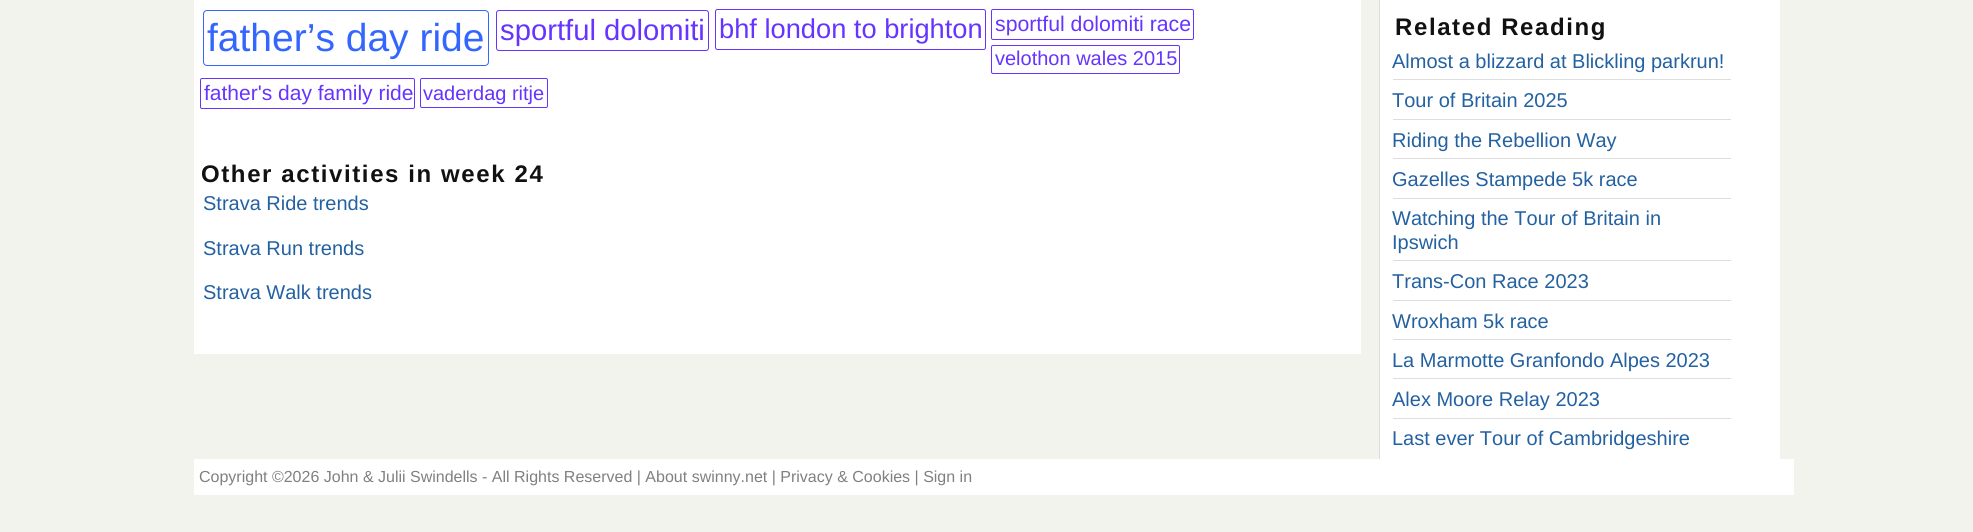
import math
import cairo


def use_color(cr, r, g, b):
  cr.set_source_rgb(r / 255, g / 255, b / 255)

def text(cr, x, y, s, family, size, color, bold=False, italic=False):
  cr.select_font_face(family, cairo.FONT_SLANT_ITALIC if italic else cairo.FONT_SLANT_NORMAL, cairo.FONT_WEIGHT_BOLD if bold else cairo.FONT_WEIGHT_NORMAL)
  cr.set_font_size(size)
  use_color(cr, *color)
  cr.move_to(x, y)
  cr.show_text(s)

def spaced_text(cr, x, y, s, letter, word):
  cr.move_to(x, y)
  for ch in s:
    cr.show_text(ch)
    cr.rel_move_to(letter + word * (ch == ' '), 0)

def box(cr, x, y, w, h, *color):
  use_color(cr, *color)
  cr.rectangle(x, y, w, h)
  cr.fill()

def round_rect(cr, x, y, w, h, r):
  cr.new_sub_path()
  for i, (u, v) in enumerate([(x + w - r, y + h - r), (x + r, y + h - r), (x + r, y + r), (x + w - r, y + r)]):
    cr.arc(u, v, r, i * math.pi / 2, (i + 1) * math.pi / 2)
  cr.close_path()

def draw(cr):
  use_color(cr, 243, 243, 238)
  cr.paint()
  box(cr, 194, 0, 1167, 354, 255, 255, 255)
  round_rect(cr, 203.5, 10.5, 285, 55, 3.5)
  use_color(cr, 51, 102, 255)
  cr.set_line_width(1)
  cr.stroke()
  round_rect(cr, 496.5, 10.5, 212, 40, 2.5)
  use_color(cr, 102, 51, 255)
  cr.stroke()
  round_rect(cr, 715.5, 9.5, 270, 40, 2)
  cr.stroke()
  round_rect(cr, 991.5, 9.5, 202, 30, 1.5)
  cr.stroke()
  round_rect(cr, 991.5, 45.5, 188, 28, 1.5)
  cr.stroke()
  round_rect(cr, 200.5, 78.5, 214, 30, 1.5)
  cr.stroke()
  round_rect(cr, 420.5, 78.5, 127, 29, 1.5)
  cr.stroke()
  box(cr, 1380, 0, 400, 459, 255, 255, 255)
  box(cr, 1379, 0, 1, 459, 221, 221, 221)
  box(cr, 1393, 79, 338, 1, 221, 221, 221)
  box(cr, 1393, 119, 338, 1, 221, 221, 221)
  box(cr, 1393, 158, 338, 1, 221, 221, 221)
  box(cr, 1393, 198, 338, 1, 221, 221, 221)
  box(cr, 1393, 260, 338, 1, 221, 221, 221)
  box(cr, 1393, 300, 338, 1, 221, 221, 221)
  box(cr, 1393, 339, 338, 1, 221, 221, 221)
  box(cr, 1393, 378, 338, 1, 221, 221, 221)
  box(cr, 1393, 418, 338, 1, 221, 221, 221)
  box(cr, 194, 459, 1600, 36, 255, 255, 255)
  text(cr, 207, 51, "father’s day ride", "Liberation Sans", 39, (51, 102, 255))
  text(cr, 500, 40, "sportful dolomiti", "Liberation Sans", 29.25, (102, 51, 255))
  text(cr, 719, 38, "bhf london to brighton", "Liberation Sans", 27.25, (102, 51, 255))
  text(cr, 995, 31, "sportful dolomiti race", "Liberation Sans", 21.25, (102, 51, 255))
  text(cr, 995, 65, "velothon wales 2015", "Liberation Sans", 20, (102, 51, 255))
  text(cr, 204, 100, "father's day family ride", "Liberation Sans", 21, (102, 51, 255))
  text(cr, 423, 100, "vaderdag ritje", "Liberation Sans", 20, (102, 51, 255))
  cr.select_font_face("Liberation Sans", cairo.FONT_SLANT_NORMAL, cairo.FONT_WEIGHT_BOLD)
  cr.set_font_size(24)
  use_color(cr, 17, 17, 17)
  spaced_text(cr, 201, 182, "Other activities in week 24", 1.6, 0)
  text(cr, 203, 210, "Strava Ride trends", "Liberation Sans", 20, (35, 97, 161))
  text(cr, 203, 255, "Strava Run trends", "Liberation Sans", 20, (35, 97, 161))
  text(cr, 203, 299, "Strava Walk trends", "Liberation Sans", 20, (35, 97, 161))
  cr.select_font_face("Liberation Sans", cairo.FONT_SLANT_NORMAL, cairo.FONT_WEIGHT_BOLD)
  cr.set_font_size(24)
  use_color(cr, 17, 17, 17)
  spaced_text(cr, 1395, 35, "Related Reading", 1.6, 0)
  text(cr, 1392, 68, "Almost a blizzard at Blickling parkrun!", "Liberation Sans", 20, (35, 97, 161))
  text(cr, 1392, 107, "Tour of Britain 2025", "Liberation Sans", 20, (35, 97, 161))
  text(cr, 1392, 147, "Riding the Rebellion Way", "Liberation Sans", 20, (35, 97, 161))
  text(cr, 1392, 186, "Gazelles Stampede 5k race", "Liberation Sans", 20, (35, 97, 161))
  text(cr, 1392, 225, "Watching the Tour of Britain in", "Liberation Sans", 20, (35, 97, 161))
  text(cr, 1392, 249, "Ipswich", "Liberation Sans", 20, (35, 97, 161))
  text(cr, 1392, 288, "Trans-Con Race 2023", "Liberation Sans", 20, (35, 97, 161))
  text(cr, 1392, 328, "Wroxham 5k race", "Liberation Sans", 20, (35, 97, 161))
  text(cr, 1392, 367, "La Marmotte Granfondo Alpes 2023", "Liberation Sans", 20, (35, 97, 161))
  text(cr, 1392, 406, "Alex Moore Relay 2023", "Liberation Sans", 20, (35, 97, 161))
  text(cr, 1392, 445, "Last ever Tour of Cambridgeshire", "Liberation Sans", 20, (35, 97, 161))
  text(cr, 199, 482, "Copyright ©2026 John & Julii Swindells - All Rights Reserved | About swinny.net | Privacy & Cookies | Sign in", "Liberation Sans", 16, (128, 128, 128))


surface = cairo.ImageSurface(cairo.FORMAT_RGB24, 1973, 532)
cr = cairo.Context(surface)
options = cairo.FontOptions()
options.set_hint_metrics(cairo.HINT_METRICS_OFF)
options.set_hint_style(cairo.HINT_STYLE_NONE)
cr.set_font_options(options)
cr.set_miter_limit(4)
draw(cr)
surface.write_to_png("out.png")
